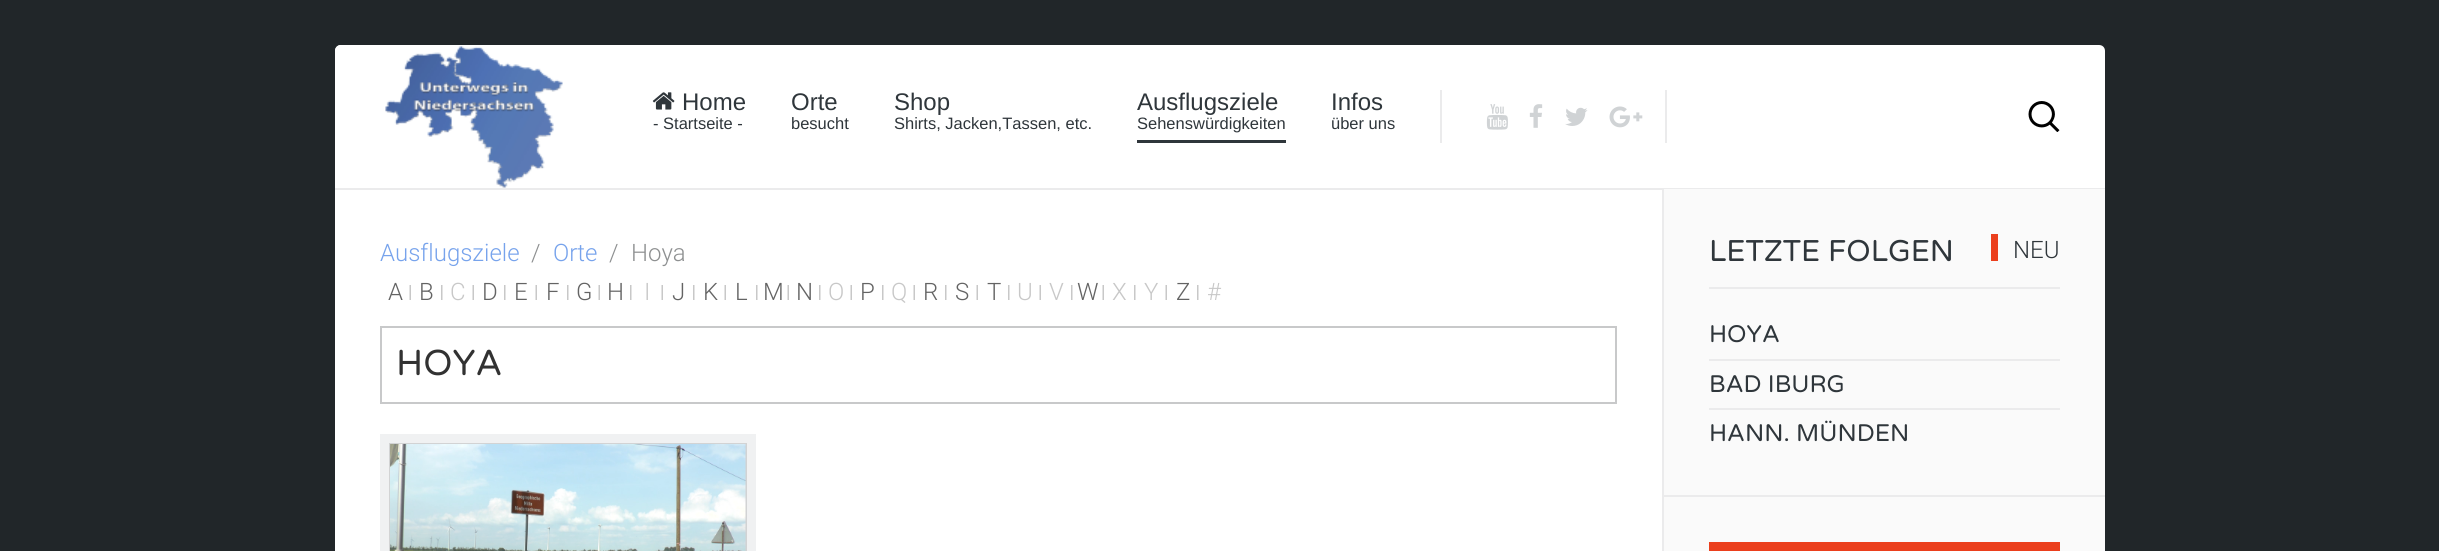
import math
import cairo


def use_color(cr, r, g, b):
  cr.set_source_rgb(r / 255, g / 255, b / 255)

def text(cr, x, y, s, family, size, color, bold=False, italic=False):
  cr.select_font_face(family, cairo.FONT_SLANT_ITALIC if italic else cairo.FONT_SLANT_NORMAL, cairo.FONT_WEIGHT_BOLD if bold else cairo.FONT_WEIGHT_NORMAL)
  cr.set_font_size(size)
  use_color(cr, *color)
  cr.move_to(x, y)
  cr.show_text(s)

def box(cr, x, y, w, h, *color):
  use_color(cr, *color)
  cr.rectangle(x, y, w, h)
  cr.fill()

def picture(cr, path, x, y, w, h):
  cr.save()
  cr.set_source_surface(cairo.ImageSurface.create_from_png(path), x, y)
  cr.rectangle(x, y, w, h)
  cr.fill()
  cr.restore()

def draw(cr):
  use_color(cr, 33, 38, 41)
  cr.paint()
  use_color(cr, 255, 255, 255)
  cr.new_path()
  cr.move_to(341, 45)
  cr.line_to(2099, 45)
  cr.curve_to(2102.5, 45, 2105, 47.5, 2105, 51)
  cr.line_to(2105, 188)
  cr.line_to(335, 188)
  cr.line_to(335, 51)
  cr.curve_to(335, 47.5, 337.5, 45, 341, 45)
  cr.close_path()
  cr.fill()
  cr.new_path()
  cr.move_to(341, 45)
  cr.line_to(608, 45)
  cr.line_to(608, 188)
  cr.line_to(335, 188)
  cr.line_to(335, 51)
  cr.curve_to(335, 47.5, 337.5, 45, 341, 45)
  cr.close_path()
  cr.fill()
  picture(cr, "img_01.png", 385, 46, 178, 142)
  picture(cr, "img_02.png", 652, 92, 23, 18)
  box(cr, 1137, 140, 149, 3, 47, 54, 59)
  box(cr, 1440, 90, 2, 53, 235, 235, 236)
  picture(cr, "img_03.png", 1486, 104, 22, 26)
  picture(cr, "img_04.png", 1529, 104, 14, 24)
  picture(cr, "img_05.png", 1565, 107, 23, 19)
  picture(cr, "img_06.png", 1609, 106, 34, 22)
  box(cr, 1665, 90, 2, 53, 235, 235, 236)
  picture(cr, "img_07.png", 2028, 101, 32, 31)
  box(cr, 335, 190, 1327, 361, 255, 255, 255)
  box(cr, 335, 188, 1770, 2, 235, 235, 236)
  picture(cr, "img_08.png", 409, 285, 2, 15)
  picture(cr, "img_09.png", 441, 285, 2, 15)
  picture(cr, "img_08.png", 472, 285, 2, 15)
  picture(cr, "img_09.png", 504, 285, 2, 15)
  picture(cr, "img_08.png", 535, 285, 2, 15)
  picture(cr, "img_09.png", 567, 285, 2, 15)
  picture(cr, "img_08.png", 598, 285, 2, 15)
  picture(cr, "img_09.png", 630, 285, 2, 15)
  picture(cr, "img_08.png", 661, 285, 2, 15)
  picture(cr, "img_09.png", 693, 285, 2, 15)
  picture(cr, "img_08.png", 724, 285, 2, 15)
  picture(cr, "img_09.png", 756, 285, 2, 15)
  picture(cr, "img_08.png", 787, 285, 2, 15)
  picture(cr, "img_09.png", 819, 285, 2, 15)
  picture(cr, "img_08.png", 850, 285, 2, 15)
  picture(cr, "img_09.png", 882, 285, 2, 15)
  picture(cr, "img_08.png", 913, 285, 2, 15)
  picture(cr, "img_09.png", 945, 285, 2, 15)
  picture(cr, "img_08.png", 976, 285, 2, 15)
  picture(cr, "img_09.png", 1008, 285, 2, 15)
  picture(cr, "img_08.png", 1039, 285, 2, 15)
  picture(cr, "img_09.png", 1071, 285, 2, 15)
  picture(cr, "img_08.png", 1102, 285, 2, 15)
  picture(cr, "img_09.png", 1134, 285, 2, 15)
  picture(cr, "img_08.png", 1165, 285, 2, 15)
  picture(cr, "img_09.png", 1197, 285, 2, 15)
  cr.rectangle(381, 327, 1235, 76)
  use_color(cr, 200, 201, 202)
  cr.stroke()
  cr.rectangle(384.5, 438.5, 367, 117)
  use_color(cr, 240, 241, 242)
  cr.set_line_width(9)
  cr.stroke()
  cr.rectangle(390, 444, 356, 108)
  use_color(cr, 210, 211, 212)
  cr.set_line_width(2)
  cr.stroke()
  picture(cr, "img_10.png", 390, 444, 356, 107)
  box(cr, 1664, 189, 441, 362, 250, 250, 250)
  box(cr, 1662, 189, 2, 362, 235, 235, 236)
  box(cr, 1709, 287, 351, 2, 235, 235, 236)
  box(cr, 1991, 234, 7, 27, 235, 63, 29)
  box(cr, 1709, 359, 351, 2, 235, 235, 236)
  box(cr, 1709, 408, 351, 2, 235, 235, 236)
  box(cr, 1664, 495, 441, 2, 235, 235, 236)
  box(cr, 1709, 542, 351, 9, 235, 63, 29)
  text(cr, 682, 110, "Home", "Liberation Sans", 24, (47, 54, 59))
  text(cr, 653, 129, "- Startseite -", "Liberation Sans", 16.5, (47, 54, 59))
  text(cr, 791, 110, "Orte", "Liberation Sans", 24, (47, 54, 59))
  text(cr, 791, 129, "besucht", "Liberation Sans", 16.5, (47, 54, 59))
  text(cr, 894, 110, "Shop", "Liberation Sans", 24, (47, 54, 59))
  text(cr, 894, 129, "Shirts, Jacken,Tassen, etc.", "Liberation Sans", 16.5, (47, 54, 59))
  text(cr, 1137, 110, "Ausflugsziele", "Liberation Sans", 24, (47, 54, 59))
  text(cr, 1137, 129, "Sehenswürdigkeiten", "Liberation Sans", 16.5, (47, 54, 59))
  text(cr, 1331, 110, "Infos", "Liberation Sans", 24, (47, 54, 59))
  text(cr, 1331, 129, "über uns", "Liberation Sans", 16.5, (47, 54, 59))
  text(cr, 380, 261, "Ausflugsziele", "Roboto Light", 24, (119, 163, 236))
  text(cr, 531, 261, "/", "Roboto Light", 24, (142, 144, 145))
  text(cr, 553, 261, "Orte", "Roboto Light", 24, (119, 163, 236))
  text(cr, 609, 261, "/", "Roboto Light", 24, (142, 144, 145))
  text(cr, 631, 261, "Hoya", "Roboto Light", 24, (142, 144, 145))
  text(cr, 388, 300, "A", "Roboto Light", 24, (100, 100, 100))
  text(cr, 419, 300, "B", "Roboto Light", 24, (100, 100, 100))
  text(cr, 450, 300, "C", "Roboto Light", 24, (200, 200, 200))
  text(cr, 482, 300, "D", "Roboto Light", 24, (100, 100, 100))
  text(cr, 514, 300, "E", "Roboto Light", 24, (100, 100, 100))
  text(cr, 546, 300, "F", "Roboto Light", 24, (100, 100, 100))
  text(cr, 576, 300, "G", "Roboto Light", 24, (100, 100, 100))
  text(cr, 607, 300, "H", "Roboto Light", 24, (100, 100, 100))
  text(cr, 644, 300, "I", "Roboto Light", 24, (200, 200, 200))
  text(cr, 672, 300, "J", "Roboto Light", 24, (100, 100, 100))
  text(cr, 703, 300, "K", "Roboto Light", 24, (100, 100, 100))
  text(cr, 735, 300, "L", "Roboto Light", 24, (100, 100, 100))
  text(cr, 763, 300, "M", "Roboto Light", 24, (100, 100, 100))
  text(cr, 796, 300, "N", "Roboto Light", 24, (100, 100, 100))
  text(cr, 828, 300, "O", "Roboto Light", 24, (200, 200, 200))
  text(cr, 860, 300, "P", "Roboto Light", 24, (100, 100, 100))
  text(cr, 891, 300, "Q", "Roboto Light", 24, (200, 200, 200))
  text(cr, 923, 300, "R", "Roboto Light", 24, (100, 100, 100))
  text(cr, 955, 300, "S", "Roboto Light", 24, (100, 100, 100))
  text(cr, 987, 300, "T", "Roboto Light", 24, (100, 100, 100))
  text(cr, 1017, 300, "U", "Roboto Light", 24, (200, 200, 200))
  text(cr, 1049, 300, "V", "Roboto Light", 24, (200, 200, 200))
  text(cr, 1077, 300, "W", "Roboto Light", 24, (100, 100, 100))
  text(cr, 1112, 300, "X", "Roboto Light", 24, (200, 200, 200))
  text(cr, 1144, 300, "Y", "Roboto Light", 24, (200, 200, 200))
  text(cr, 1176, 300, "Z", "Roboto Light", 24, (100, 100, 100))
  text(cr, 1207, 300, "#", "Roboto Light", 24, (200, 200, 200))
  text(cr, 396, 375, "HOYA", "Varela Round", 36, (50, 50, 50))
  text(cr, 1709, 261, "LETZTE FOLGEN", "Varela Round", 30, (47, 54, 59))
  text(cr, 2013, 258, "NEU", "Roboto Light", 24, (47, 54, 59))
  text(cr, 1709, 342, "HOYA", "Varela Round", 24, (47, 54, 59))
  text(cr, 1709, 392, "BAD IBURG", "Varela Round", 24, (47, 54, 59))
  text(cr, 1709, 441, "HANN. MÜNDEN", "Varela Round", 24, (47, 54, 59))


surface = cairo.ImageSurface(cairo.FORMAT_RGB24, 2439, 551)
cr = cairo.Context(surface)
options = cairo.FontOptions()
options.set_hint_metrics(cairo.HINT_METRICS_OFF)
options.set_hint_style(cairo.HINT_STYLE_NONE)
cr.set_font_options(options)
cr.set_miter_limit(4)
draw(cr)
surface.write_to_png("out.png")
